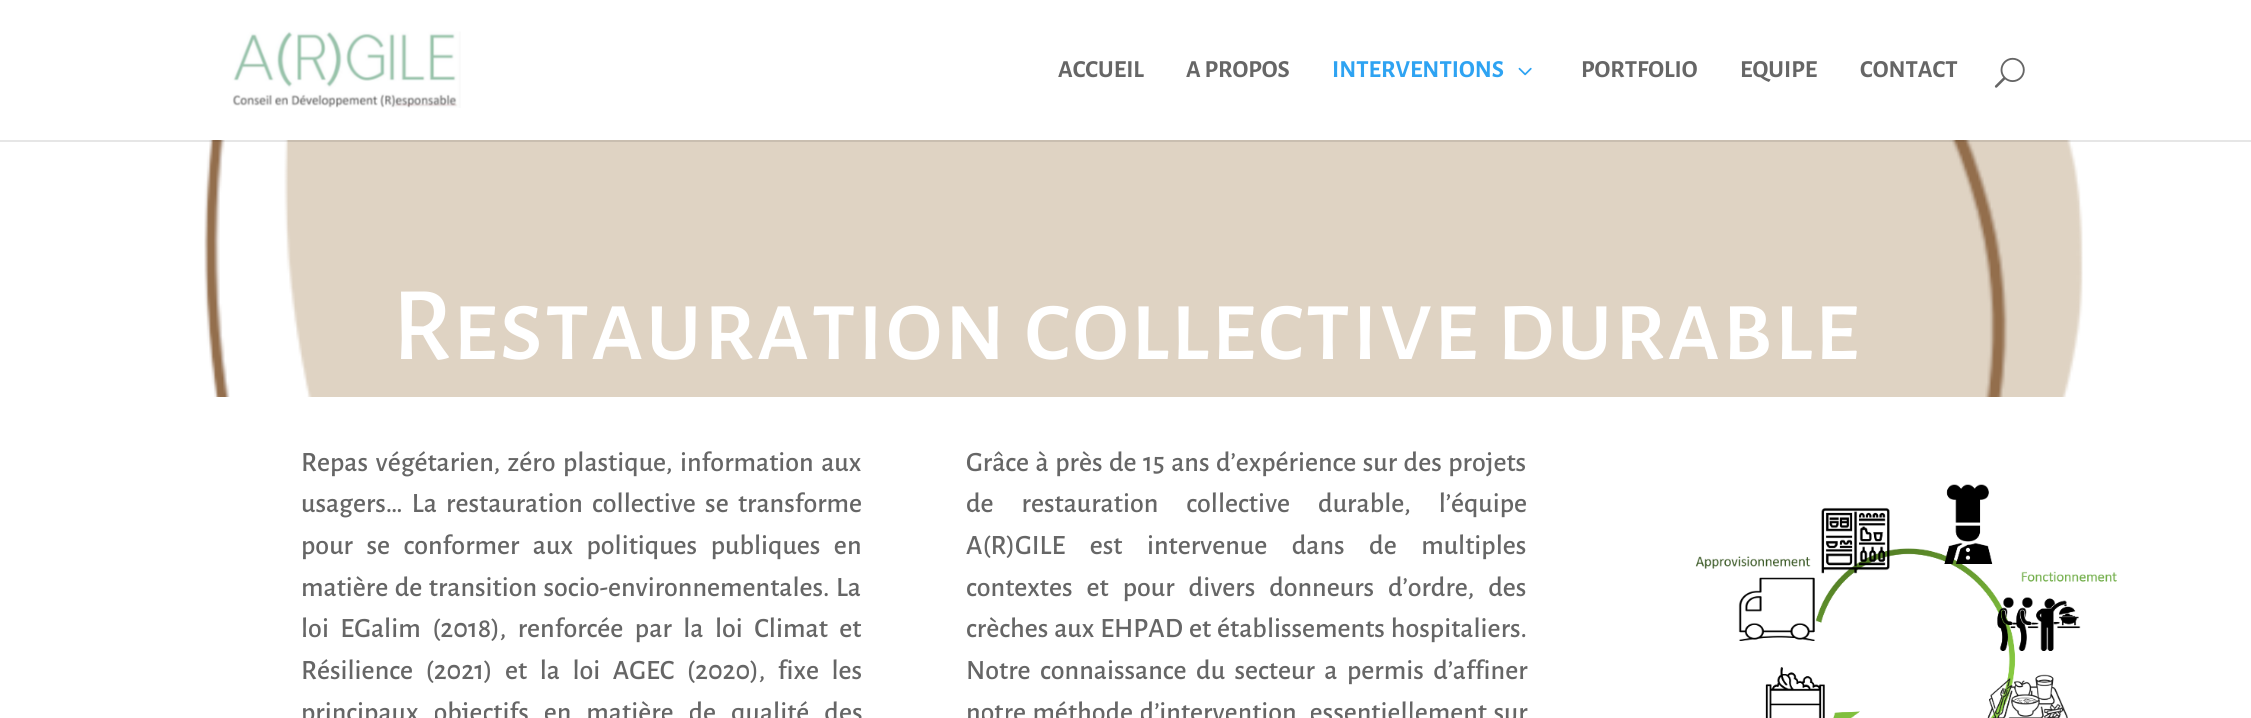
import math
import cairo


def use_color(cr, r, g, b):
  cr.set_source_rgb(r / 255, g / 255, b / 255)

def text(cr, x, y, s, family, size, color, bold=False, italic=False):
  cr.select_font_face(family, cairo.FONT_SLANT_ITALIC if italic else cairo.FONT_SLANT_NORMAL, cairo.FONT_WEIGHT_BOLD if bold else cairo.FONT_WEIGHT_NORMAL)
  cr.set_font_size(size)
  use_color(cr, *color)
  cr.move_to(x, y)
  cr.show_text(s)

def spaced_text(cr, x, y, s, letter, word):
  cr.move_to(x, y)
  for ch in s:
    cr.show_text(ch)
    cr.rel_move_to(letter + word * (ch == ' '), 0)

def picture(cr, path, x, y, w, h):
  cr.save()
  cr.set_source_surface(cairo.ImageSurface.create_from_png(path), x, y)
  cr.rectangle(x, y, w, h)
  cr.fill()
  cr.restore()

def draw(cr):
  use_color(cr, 255, 255, 255)
  cr.paint()
  picture(cr, "img_04.png", 204, 140, 1879, 257)
  cr.set_source_rgba(0, 0, 0, 0.1)
  cr.rectangle(0, 140, 2251, 2)
  cr.fill()
  picture(cr, "img_01.png", 232, 31, 229, 77)
  picture(cr, "img_02.png", 1518, 67, 14, 9)
  picture(cr, "img_03.png", 1994, 57, 31, 31)
  picture(cr, "img_05.png", 1695, 484, 422, 234)
  text(cr, 1058, 77, "ACCUEIL", "Alegreya Sans", 24.5, (102, 102, 102), bold=True)
  text(cr, 1186, 77, "A PROPOS", "Alegreya Sans", 24.5, (102, 102, 102), bold=True)
  text(cr, 1332, 77, "INTERVENTIONS", "Alegreya Sans", 24.5, (46, 163, 242), bold=True)
  text(cr, 1581, 77, "PORTFOLIO", "Alegreya Sans", 24.5, (102, 102, 102), bold=True)
  text(cr, 1740, 77, "EQUIPE", "Alegreya Sans", 24.5, (102, 102, 102), bold=True)
  text(cr, 1860, 77, "CONTACT", "Alegreya Sans", 24.5, (102, 102, 102), bold=True)
  text(cr, 392, 359, "Restauration collective durable", "Alegreya Sans SC Medium", 105, (255, 255, 255))
  cr.select_font_face("Alegreya Sans Medium")
  cr.set_font_size(28)
  use_color(cr, 102, 102, 102)
  spaced_text(cr, 301, 471, "Repas végétarien, zéro plastique, information aux", 0, 3)
  spaced_text(cr, 301, 512, "usagers… La restauration collective se transforme", 0, 4.75)
  spaced_text(cr, 301, 554, "pour se conformer aux politiques publiques en", 0, 9)
  spaced_text(cr, 301, 596, "matière de transition socio-environnementales. La", 0, 2)
  spaced_text(cr, 301, 637, "loi EGalim (2018), renforcée par la loi Climat et", 0, 7)
  spaced_text(cr, 301, 679, "Résilience (2021) et la loi AGEC (2020), fixe les", 0, 8)
  spaced_text(cr, 301, 721, "principaux objectifs en matière de qualité des", 0, 10.5)
  spaced_text(cr, 966, 471, "Grâce à près de 15 ans d’expérience sur des projets", 0, 2)
  spaced_text(cr, 966, 512, "de restauration collective durable, l’équipe", 0, 23.5)
  spaced_text(cr, 966, 554, "A(R)GILE est intervenue dans de multiples", 0, 20)
  spaced_text(cr, 966, 596, "contextes et pour divers donneurs d’ordre, des", 0, 9.5)
  spaced_text(cr, 966, 637, "crèches aux EHPAD et établissements hospitaliers.", 0, 1.5)
  spaced_text(cr, 966, 679, "Notre connaissance du secteur a permis d’affiner", 0, 5)
  spaced_text(cr, 966, 721, "notre méthode d’intervention, essentiellement sur", 0, 2)


surface = cairo.ImageSurface(cairo.FORMAT_RGB24, 2251, 718)
cr = cairo.Context(surface)
options = cairo.FontOptions()
options.set_hint_metrics(cairo.HINT_METRICS_OFF)
options.set_hint_style(cairo.HINT_STYLE_NONE)
cr.set_font_options(options)
cr.set_miter_limit(4)
draw(cr)
surface.write_to_png("out.png")
